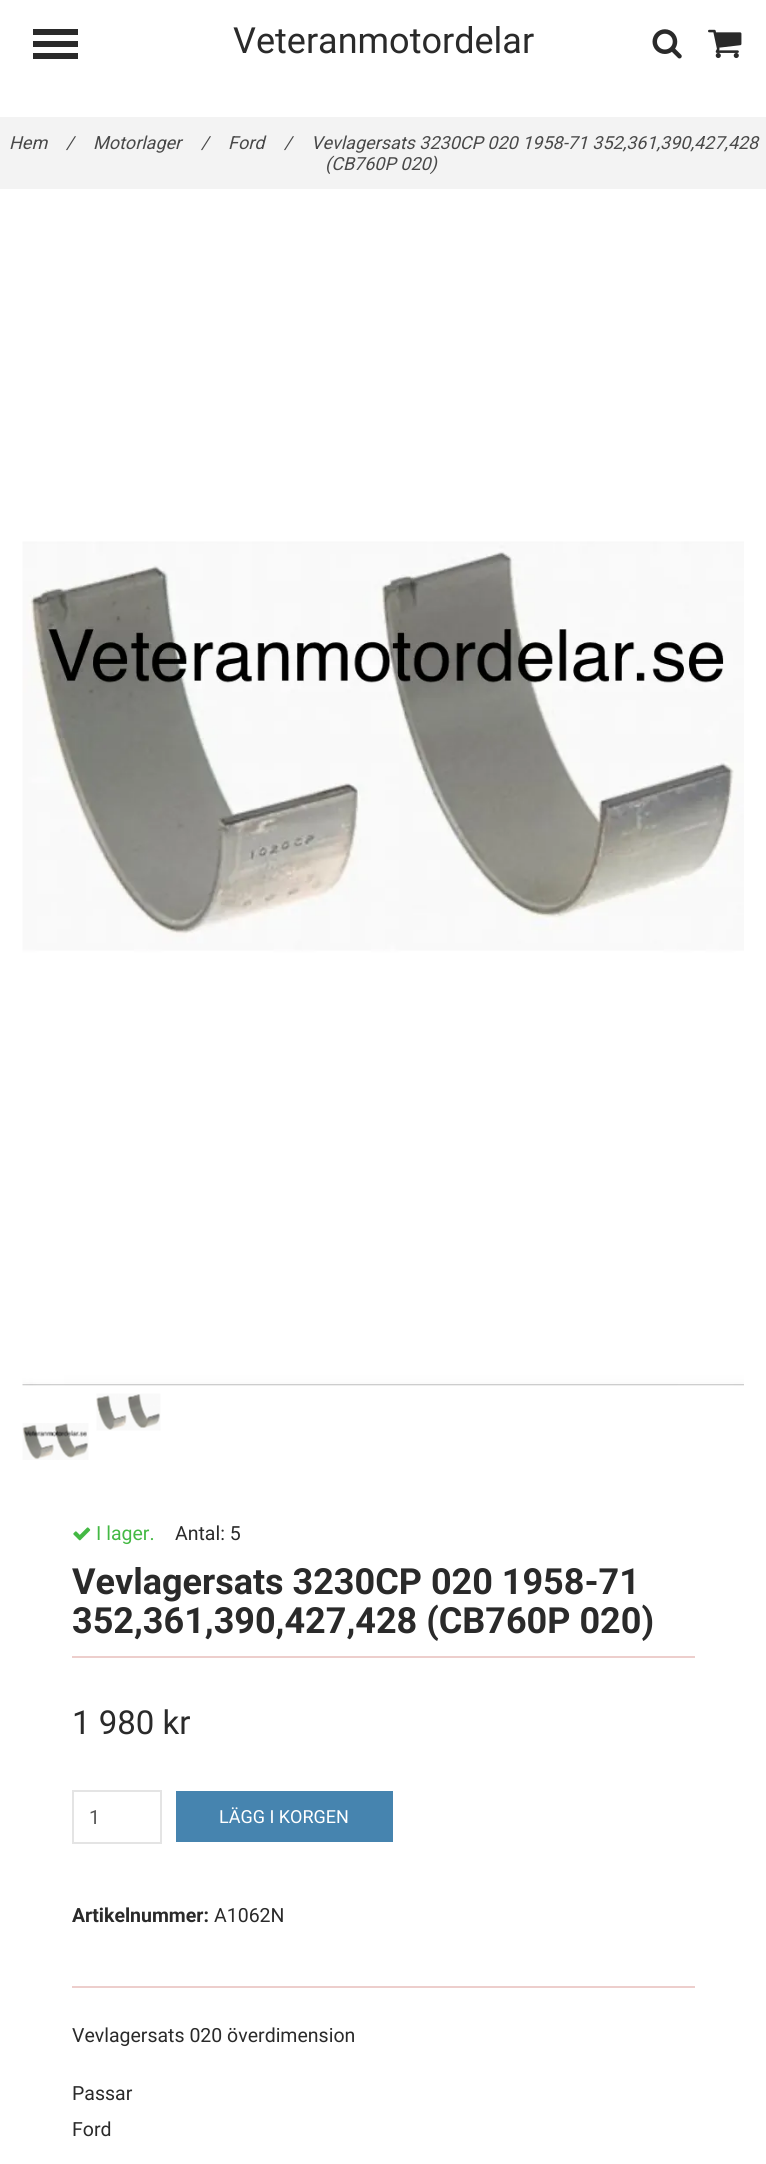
import math
import cairo


def use_color(cr, r, g, b):
  cr.set_source_rgb(r / 255, g / 255, b / 255)

def text(cr, x, y, s, family, size, color, bold=False, italic=False):
  cr.select_font_face(family, cairo.FONT_SLANT_ITALIC if italic else cairo.FONT_SLANT_NORMAL, cairo.FONT_WEIGHT_BOLD if bold else cairo.FONT_WEIGHT_NORMAL)
  cr.set_font_size(size)
  use_color(cr, *color)
  cr.move_to(x, y)
  cr.show_text(s)

def box(cr, x, y, w, h, *color):
  use_color(cr, *color)
  cr.rectangle(x, y, w, h)
  cr.fill()

def picture(cr, path, x, y, w, h):
  cr.save()
  cr.set_source_surface(cairo.ImageSurface.create_from_png(path), x, y)
  cr.rectangle(x, y, w, h)
  cr.fill()
  cr.restore()

def draw(cr):
  use_color(cr, 255, 255, 255)
  cr.paint()
  box(cr, 33, 41, 45, 6, 42, 42, 42)
  box(cr, 33, 29, 45, 6, 42, 42, 42)
  box(cr, 33, 53, 45, 6, 42, 42, 42)
  picture(cr, "img_01.png", 652, 29, 30, 30)
  picture(cr, "img_02.png", 708, 29, 34, 30)
  box(cr, 0, 117, 766, 72, 243, 243, 243)
  picture(cr, "img_03.png", 22, 541, 722, 845)
  picture(cr, "img_04.png", 96, 1393, 65, 38)
  picture(cr, "img_05.png", 22, 1423, 67, 37)
  picture(cr, "img_06.png", 73, 1527, 18, 14)
  box(cr, 72, 1656, 623, 2, 237, 206, 204)
  cr.rectangle(73, 1791, 88, 52)
  use_color(cr, 228, 228, 228)
  cr.stroke()
  box(cr, 176, 1791, 217, 51, 70, 132, 175)
  box(cr, 72, 1986, 623, 2, 237, 206, 204)
  text(cr, 233, 53, "Veteranmotordelar", "Roboto", 36, (42, 42, 42))
  text(cr, 9, 149, "Hem", "Roboto", 18, (73, 73, 73), italic=True)
  text(cr, 66, 149, "/", "Roboto", 18, (73, 73, 73), italic=True)
  text(cr, 93, 149, "Motorlager", "Roboto", 18, (73, 73, 73), italic=True)
  text(cr, 201, 149, "/", "Roboto", 18, (73, 73, 73), italic=True)
  text(cr, 228, 149, "Ford", "Roboto", 18, (73, 73, 73), italic=True)
  text(cr, 284, 149, "/", "Roboto", 18, (73, 73, 73), italic=True)
  text(cr, 311, 149, "Vevlagersats 3230CP 020 1958-71 352,361,390,427,428", "Roboto", 18, (73, 73, 73), italic=True)
  text(cr, 325, 170, "(CB760P 020)", "Roboto", 18, (73, 73, 73), italic=True)
  text(cr, 96, 1540, "I lager.", "Roboto", 19.5, (68, 185, 68))
  text(cr, 175, 1540, "Antal: 5", "Roboto", 19.5, (42, 42, 42))
  text(cr, 72, 1594, "Vevlagersats 3230CP 020 1958-71", "Roboto", 36, (42, 42, 42), bold=True)
  text(cr, 72, 1633, "352,361,390,427,428 (CB760P 020)", "Roboto", 36, (42, 42, 42), bold=True)
  text(cr, 72, 1734, "1 980 kr", "Roboto", 33, (42, 42, 42))
  text(cr, 89, 1824, "1", "Roboto", 19.5, (85, 85, 85))
  text(cr, 219, 1823, "LÄGG I KORGEN", "Roboto", 18, (255, 255, 255))
  text(cr, 72, 1922, "Artikelnummer:", "Roboto", 19.5, (42, 42, 42), bold=True)
  text(cr, 214, 1922, "A1062N", "Roboto", 19.5, (42, 42, 42))
  text(cr, 72, 2042, "Vevlagersats 020 överdimension", "Roboto", 19.5, (42, 42, 42))
  text(cr, 72, 2100, "Passar", "Roboto", 19.5, (42, 42, 42))
  text(cr, 72, 2136, "Ford", "Roboto", 19.5, (42, 42, 42))


surface = cairo.ImageSurface(cairo.FORMAT_RGB24, 766, 2164)
cr = cairo.Context(surface)
options = cairo.FontOptions()
options.set_hint_metrics(cairo.HINT_METRICS_OFF)
options.set_hint_style(cairo.HINT_STYLE_NONE)
cr.set_font_options(options)
cr.set_miter_limit(4)
draw(cr)
surface.write_to_png("out.png")
